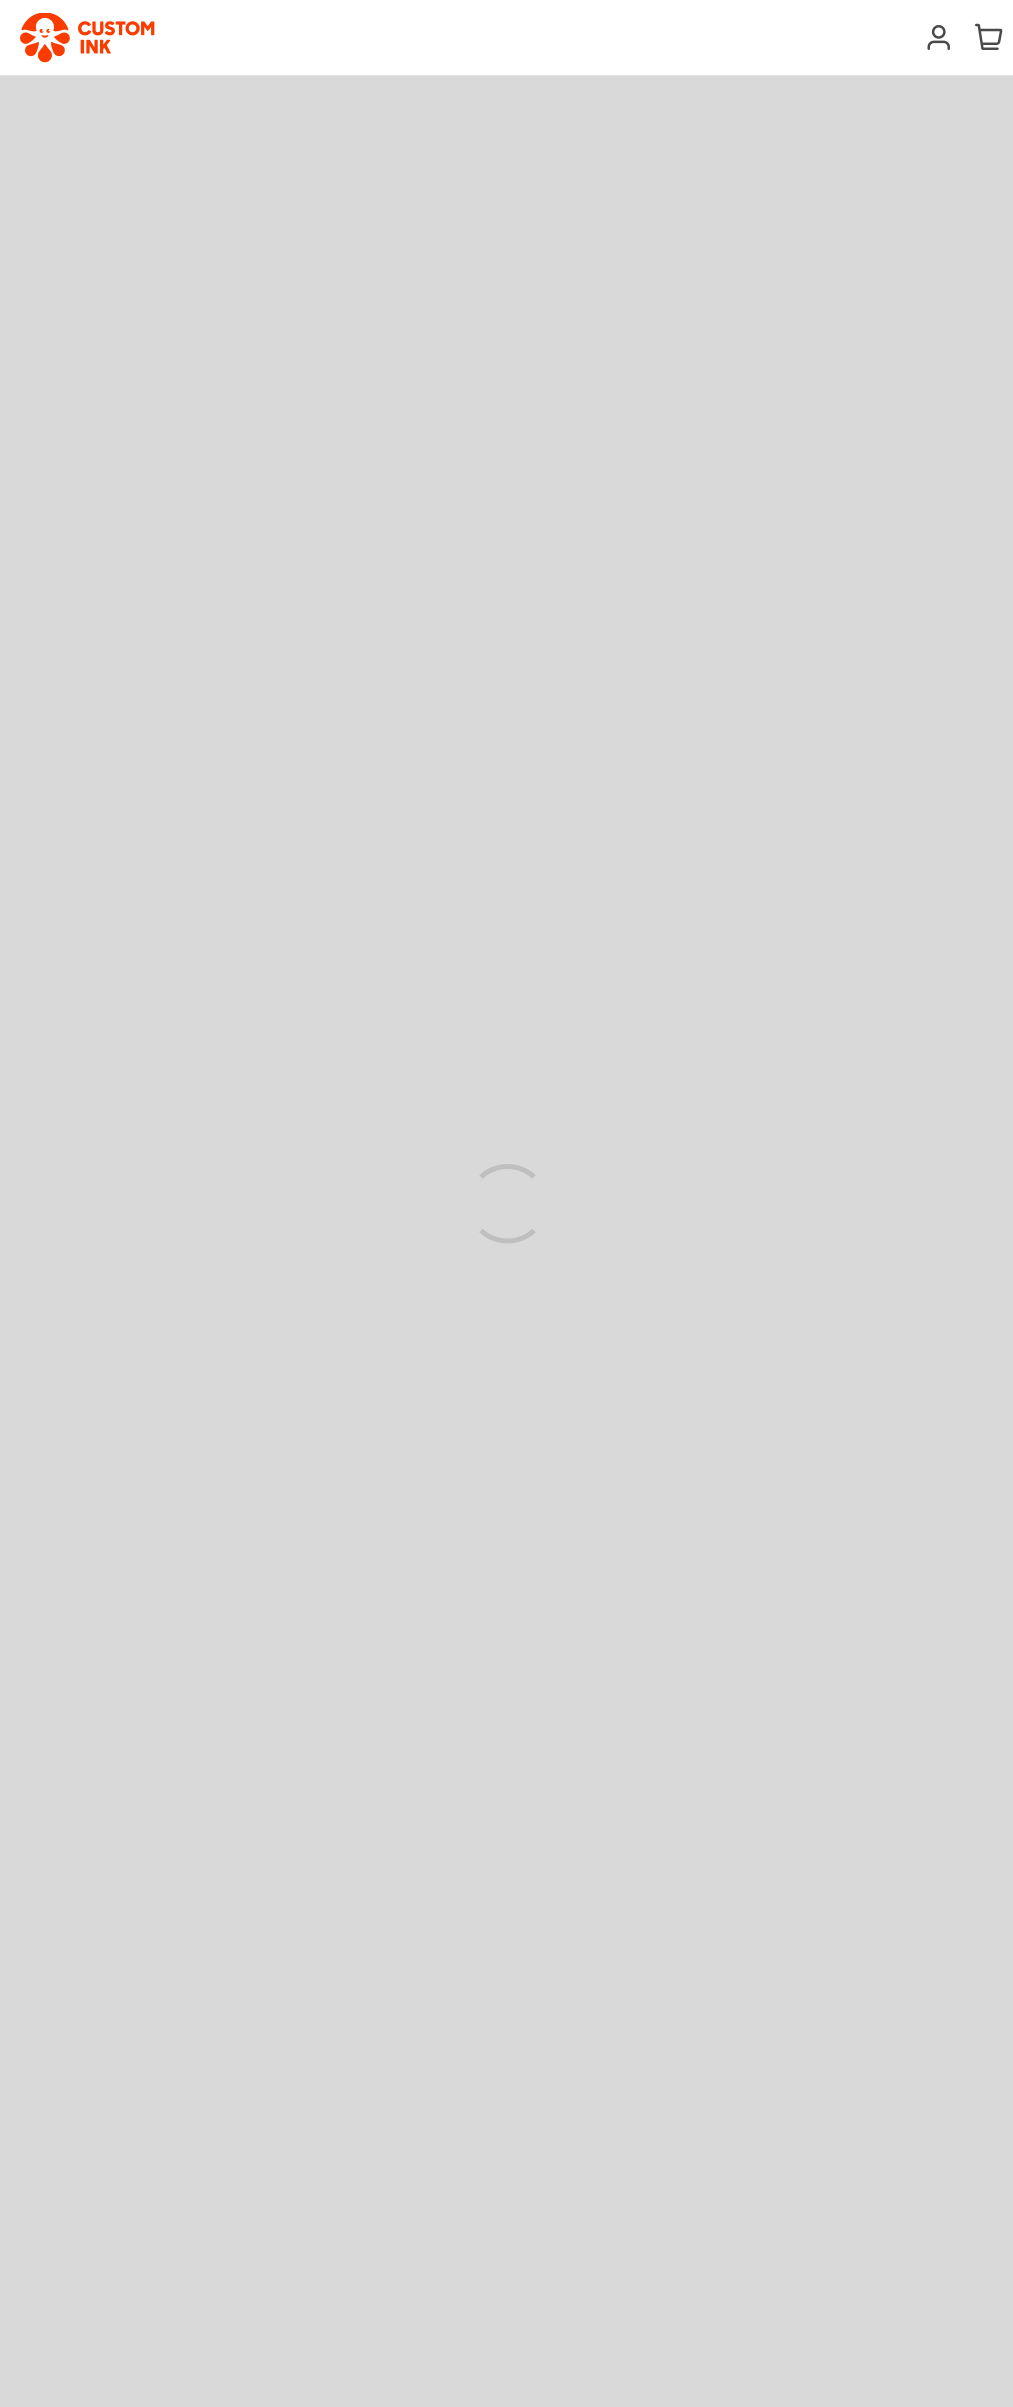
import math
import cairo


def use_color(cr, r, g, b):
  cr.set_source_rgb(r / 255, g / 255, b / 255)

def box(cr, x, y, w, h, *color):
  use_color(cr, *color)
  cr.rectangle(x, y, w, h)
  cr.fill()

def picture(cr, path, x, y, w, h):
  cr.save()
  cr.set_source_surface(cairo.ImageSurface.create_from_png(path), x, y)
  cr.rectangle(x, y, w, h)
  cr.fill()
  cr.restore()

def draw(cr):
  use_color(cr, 217, 217, 217)
  cr.paint()
  box(cr, 0, 0, 1013, 75, 255, 255, 255)
  box(cr, 0, 75, 1013, 1, 227, 227, 227)
  picture(cr, "img_01.png", 20, 13, 135, 50)
  picture(cr, "img_02.png", 927, 25, 23, 25)
  picture(cr, "img_03.png", 975, 23, 28, 27)
  cr.new_path()
  cr.move_to(481, 1177)
  cr.curve_to(495.5, 1163, 519.5, 1163, 534, 1177)
  use_color(cr, 191, 191, 191)
  cr.set_line_width(5)
  cr.stroke()
  cr.new_path()
  cr.move_to(534, 1230.5)
  cr.curve_to(519.5, 1244.5, 495.5, 1244.5, 481, 1230.5)
  cr.stroke()


surface = cairo.ImageSurface(cairo.FORMAT_RGB24, 1013, 2407)
cr = cairo.Context(surface)
options = cairo.FontOptions()
options.set_hint_metrics(cairo.HINT_METRICS_OFF)
options.set_hint_style(cairo.HINT_STYLE_NONE)
cr.set_font_options(options)
cr.set_miter_limit(4)
draw(cr)
surface.write_to_png("out.png")
